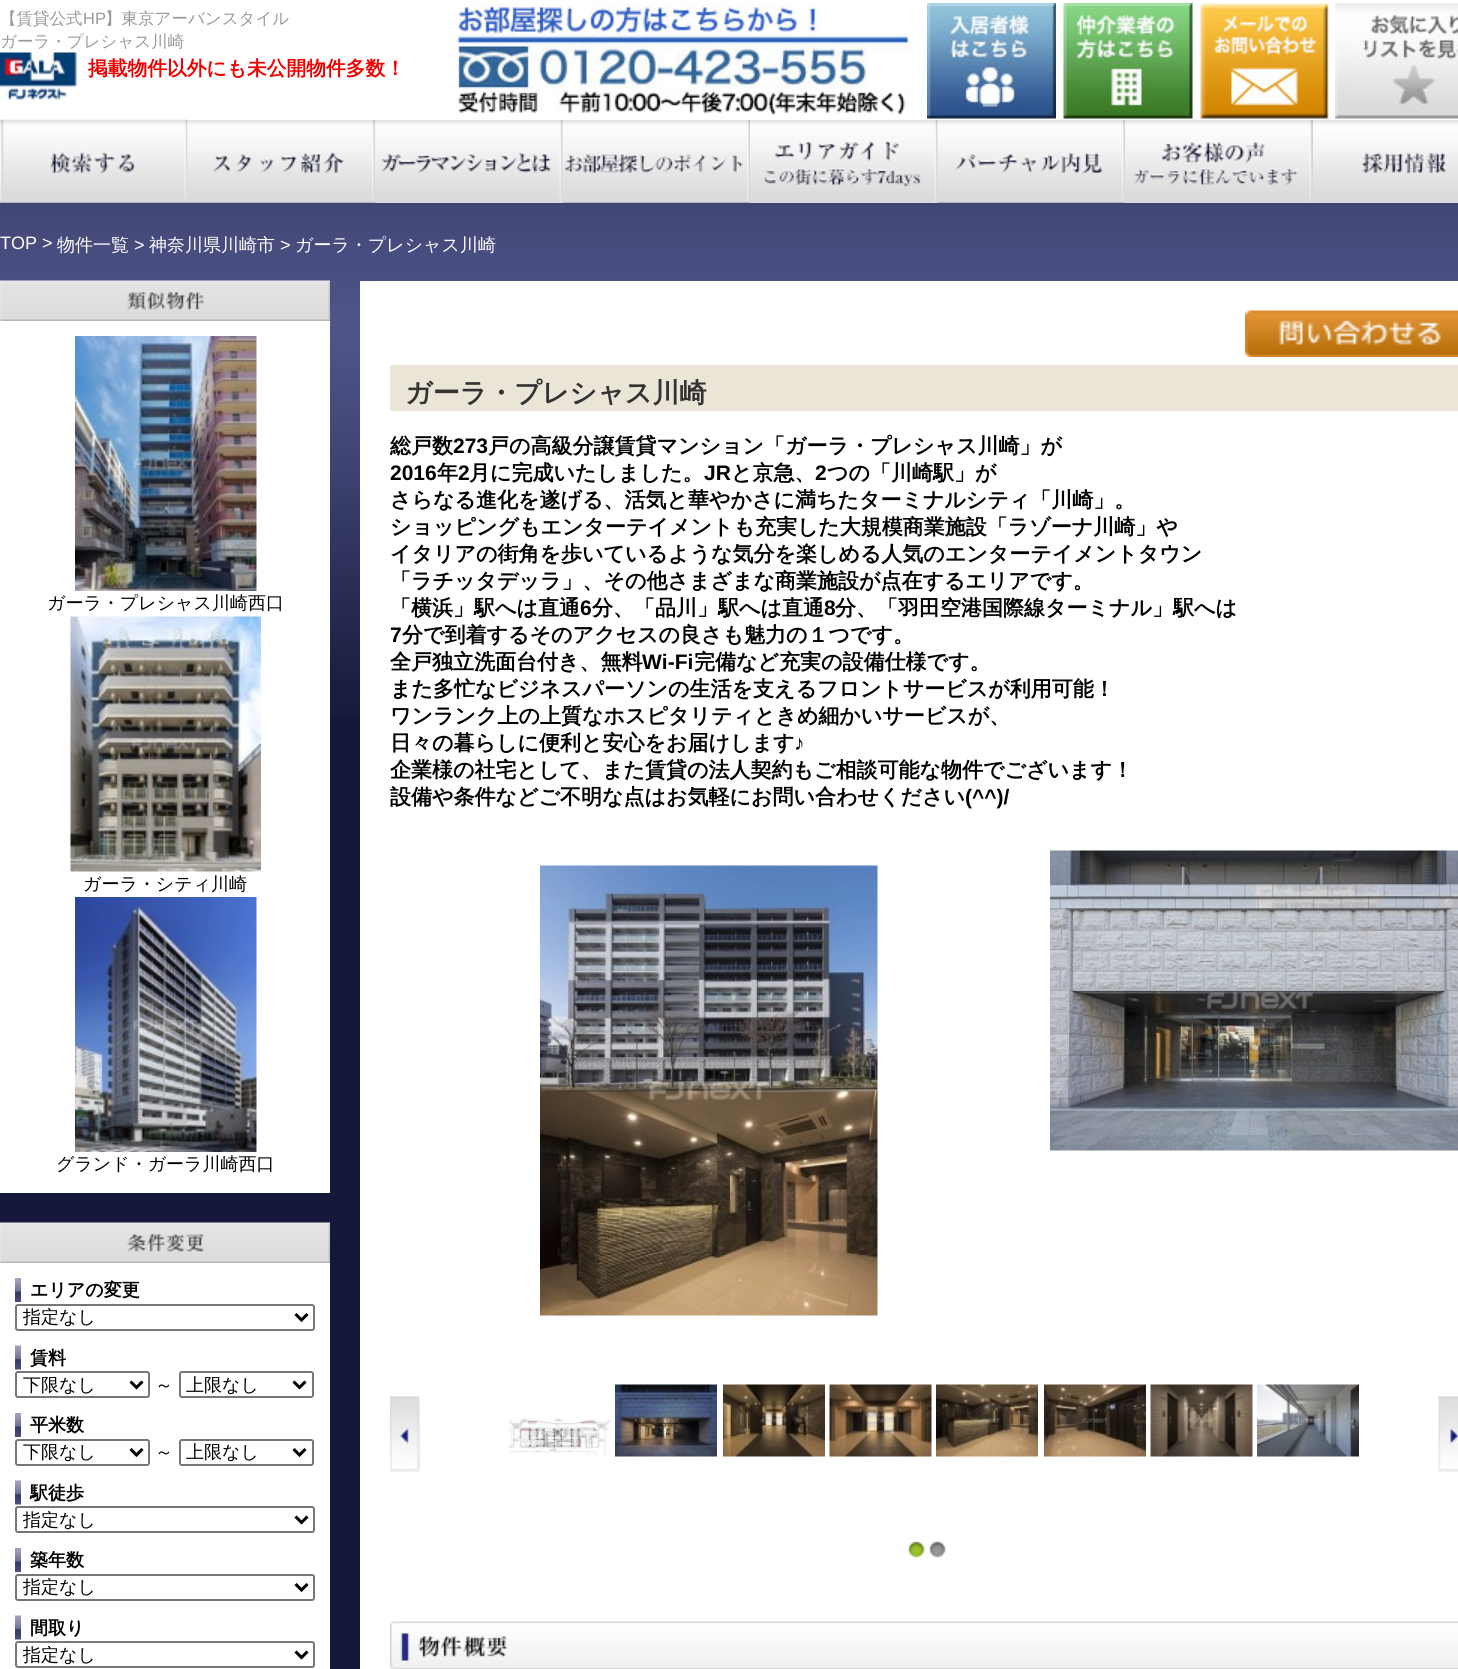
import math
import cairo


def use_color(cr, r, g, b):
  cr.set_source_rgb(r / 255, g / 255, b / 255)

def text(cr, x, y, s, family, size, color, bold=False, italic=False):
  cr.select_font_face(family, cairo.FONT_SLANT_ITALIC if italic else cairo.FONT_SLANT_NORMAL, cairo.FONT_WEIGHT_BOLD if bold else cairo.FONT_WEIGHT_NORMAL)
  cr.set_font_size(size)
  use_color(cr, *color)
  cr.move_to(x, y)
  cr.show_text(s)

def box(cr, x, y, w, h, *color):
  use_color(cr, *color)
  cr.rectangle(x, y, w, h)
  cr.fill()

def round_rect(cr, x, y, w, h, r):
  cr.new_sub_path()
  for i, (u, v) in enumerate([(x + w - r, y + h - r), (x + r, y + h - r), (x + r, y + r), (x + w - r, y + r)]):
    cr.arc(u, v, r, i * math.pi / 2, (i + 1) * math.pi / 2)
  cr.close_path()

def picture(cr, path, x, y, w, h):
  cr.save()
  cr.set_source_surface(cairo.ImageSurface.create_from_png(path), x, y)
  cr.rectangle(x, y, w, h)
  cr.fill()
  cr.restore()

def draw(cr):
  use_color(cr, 21, 24, 58)
  cr.paint()
  picture(cr, "img_01.png", 0, 202, 1458, 512)
  box(cr, 0, 0, 1458, 120, 255, 255, 255)
  picture(cr, "img_02.png", 0, 52, 77, 48)
  picture(cr, "img_03.png", 447, 4, 465, 111)
  picture(cr, "img_04.png", 927, 3, 129, 116)
  picture(cr, "img_05.png", 1063, 3, 130, 116)
  picture(cr, "img_06.png", 1200, 3, 129, 116)
  picture(cr, "img_07.png", 1335, 3, 123, 116)
  picture(cr, "img_08.png", 0, 120, 1458, 83)
  picture(cr, "img_09.png", 0, 119, 188, 84)
  picture(cr, "img_10.png", 187, 120, 188, 83)
  picture(cr, "img_11.png", 375, 120, 188, 83)
  picture(cr, "img_12.png", 562, 120, 188, 83)
  picture(cr, "img_13.png", 750, 120, 188, 83)
  picture(cr, "img_14.png", 937, 120, 188, 83)
  picture(cr, "img_15.png", 1125, 120, 188, 83)
  picture(cr, "img_16.png", 1313, 152, 145, 51)
  picture(cr, "img_17.png", 0, 280, 330, 41)
  box(cr, 0, 321, 330, 872, 255, 255, 255)
  picture(cr, "img_18.png", 75, 336, 182, 255)
  picture(cr, "img_19.png", 70, 616, 191, 256)
  picture(cr, "img_20.png", 75, 897, 182, 255)
  picture(cr, "img_21.png", 0, 1222, 330, 41)
  box(cr, 0, 1263, 330, 406, 255, 255, 255)
  picture(cr, "img_22.png", 15, 1278, 6, 24)
  round_rect(cr, 16, 1305, 298, 25, 2)
  use_color(cr, 118, 118, 118)
  cr.stroke()
  cr.new_path()
  cr.move_to(295.5, 1314)
  cr.line_to(301.5, 1320)
  cr.line_to(307.5, 1314)
  use_color(cr, 0, 0, 0)
  cr.set_line_width(3)
  cr.stroke()
  picture(cr, "img_23.png", 15, 1345, 6, 25)
  round_rect(cr, 16, 1372, 133, 25, 2)
  use_color(cr, 118, 118, 118)
  cr.set_line_width(2)
  cr.stroke()
  cr.new_path()
  cr.move_to(130.5, 1381.5)
  cr.line_to(136.5, 1387.5)
  cr.line_to(142.5, 1381.5)
  use_color(cr, 0, 0, 0)
  cr.set_line_width(3)
  cr.stroke()
  round_rect(cr, 180, 1372, 133, 25, 2)
  use_color(cr, 118, 118, 118)
  cr.set_line_width(2)
  cr.stroke()
  cr.new_path()
  cr.move_to(293.5, 1381.5)
  cr.line_to(299.5, 1387.5)
  cr.line_to(305.5, 1381.5)
  use_color(cr, 0, 0, 0)
  cr.set_line_width(3)
  cr.stroke()
  picture(cr, "img_22.png", 15, 1413, 6, 24)
  round_rect(cr, 16, 1440, 133, 25, 2)
  use_color(cr, 118, 118, 118)
  cr.set_line_width(2)
  cr.stroke()
  cr.new_path()
  cr.move_to(130.5, 1449)
  cr.line_to(136.5, 1455)
  cr.line_to(142.5, 1449)
  use_color(cr, 0, 0, 0)
  cr.set_line_width(3)
  cr.stroke()
  round_rect(cr, 180, 1440, 133, 25, 2)
  use_color(cr, 118, 118, 118)
  cr.set_line_width(2)
  cr.stroke()
  cr.new_path()
  cr.move_to(293.5, 1449)
  cr.line_to(299.5, 1455)
  cr.line_to(305.5, 1449)
  use_color(cr, 0, 0, 0)
  cr.set_line_width(3)
  cr.stroke()
  picture(cr, "img_23.png", 15, 1480, 6, 25)
  round_rect(cr, 16, 1507, 298, 25, 2)
  use_color(cr, 118, 118, 118)
  cr.set_line_width(2)
  cr.stroke()
  cr.new_path()
  cr.move_to(295.5, 1516.5)
  cr.line_to(301.5, 1522.5)
  cr.line_to(307.5, 1516.5)
  use_color(cr, 0, 0, 0)
  cr.set_line_width(3)
  cr.stroke()
  picture(cr, "img_22.png", 15, 1548, 6, 24)
  round_rect(cr, 16, 1575, 298, 25, 2)
  use_color(cr, 118, 118, 118)
  cr.set_line_width(2)
  cr.stroke()
  cr.new_path()
  cr.move_to(295.5, 1584)
  cr.line_to(301.5, 1590)
  cr.line_to(307.5, 1584)
  use_color(cr, 0, 0, 0)
  cr.set_line_width(3)
  cr.stroke()
  picture(cr, "img_23.png", 15, 1615, 6, 25)
  round_rect(cr, 16, 1642, 298, 25, 2)
  use_color(cr, 118, 118, 118)
  cr.set_line_width(2)
  cr.stroke()
  cr.new_path()
  cr.move_to(295.5, 1651.5)
  cr.line_to(301.5, 1657.5)
  cr.line_to(307.5, 1651.5)
  use_color(cr, 0, 0, 0)
  cr.set_line_width(3)
  cr.stroke()
  box(cr, 360, 281, 1098, 1388, 255, 255, 255)
  picture(cr, "img_24.png", 1245, 310, 213, 47)
  box(cr, 390, 365, 1068, 46, 234, 229, 215)
  picture(cr, "img_25.png", 540, 865, 338, 451)
  picture(cr, "img_26.png", 1050, 850, 408, 301)
  picture(cr, "img_27.png", 390, 1396, 30, 76)
  picture(cr, "img_28.png", 508, 1417, 103, 40)
  picture(cr, "img_29.png", 615, 1384, 102, 73)
  picture(cr, "img_30.png", 723, 1384, 102, 73)
  picture(cr, "img_31.png", 829, 1384, 103, 73)
  picture(cr, "img_32.png", 936, 1384, 102, 73)
  picture(cr, "img_33.png", 1044, 1384, 102, 73)
  picture(cr, "img_34.png", 1150, 1384, 103, 73)
  picture(cr, "img_35.png", 1257, 1384, 102, 73)
  picture(cr, "img_36.png", 1438, 1396, 20, 76)
  picture(cr, "img_37.png", 908, 1541, 17, 17)
  picture(cr, "img_38.png", 929, 1541, 17, 17)
  picture(cr, "img_39.png", 390, 1621, 1068, 48)
  text(cr, 0, 24, "【賃貸公式", "WenQuanYi Zen Hei Medium", 16.5, (153, 153, 153))
  text(cr, 83, 24, "HP", "Liberation Sans", 16.5, (153, 153, 153))
  text(cr, 105, 24, "】東京アーバンスタイル", "WenQuanYi Zen Hei Medium", 16.5, (153, 153, 153))
  text(cr, 0, 47, "ガーラ・プレシャス川崎", "WenQuanYi Zen Hei Medium", 16.5, (153, 153, 153))
  text(cr, 88, 75, "掲載物件以外にも未公開物件多数！", "WenQuanYi Zen Hei", 19.75, (240, 0, 0), bold=True)
  text(cr, 0, 249, "TOP >", "Liberation Sans", 18, (255, 255, 255))
  text(cr, 57, 251, "物件一覧", "WenQuanYi Zen Hei Medium", 18, (255, 255, 255))
  text(cr, 134, 251, ">", "Liberation Sans", 18, (255, 255, 255))
  text(cr, 149, 251, "神奈川県川崎市", "WenQuanYi Zen Hei Medium", 18, (255, 255, 255))
  text(cr, 280, 251, ">", "Liberation Sans", 18, (255, 255, 255))
  text(cr, 295, 251, "ガーラ・プレシャス川崎", "WenQuanYi Zen Hei Medium", 18, (255, 255, 255))
  text(cr, 47, 609, "ガーラ・プレシャス川崎西口", "WenQuanYi Zen Hei Medium", 18, (0, 0, 0))
  text(cr, 83, 890, "ガーラ・シティ川崎", "WenQuanYi Zen Hei Medium", 18, (0, 0, 0))
  text(cr, 56, 1170, "グランド・ガーラ川崎西口", "WenQuanYi Zen Hei Medium", 18, (0, 0, 0))
  text(cr, 30, 1296, "エリアの変更", "WenQuanYi Zen Hei", 18, (0, 0, 0), bold=True)
  text(cr, 23, 1323, "指定なし", "WenQuanYi Zen Hei Medium", 18, (0, 0, 0))
  text(cr, 30, 1364, "賃料", "WenQuanYi Zen Hei", 18, (0, 0, 0), bold=True)
  text(cr, 23, 1391, "下限なし", "WenQuanYi Zen Hei Medium", 18, (0, 0, 0))
  text(cr, 155, 1391, "～", "WenQuanYi Zen Hei Medium", 18, (0, 0, 0))
  text(cr, 186, 1391, "上限なし", "WenQuanYi Zen Hei Medium", 18, (0, 0, 0))
  text(cr, 30, 1431, "平米数", "WenQuanYi Zen Hei", 18, (0, 0, 0), bold=True)
  text(cr, 23, 1458, "下限なし", "WenQuanYi Zen Hei Medium", 18, (0, 0, 0))
  text(cr, 155, 1458, "～", "WenQuanYi Zen Hei Medium", 18, (0, 0, 0))
  text(cr, 186, 1458, "上限なし", "WenQuanYi Zen Hei Medium", 18, (0, 0, 0))
  text(cr, 30, 1499, "駅徒歩", "WenQuanYi Zen Hei", 18, (0, 0, 0), bold=True)
  text(cr, 23, 1526, "指定なし", "WenQuanYi Zen Hei Medium", 18, (0, 0, 0))
  text(cr, 30, 1566, "築年数", "WenQuanYi Zen Hei", 18, (0, 0, 0), bold=True)
  text(cr, 23, 1593, "指定なし", "WenQuanYi Zen Hei Medium", 18, (0, 0, 0))
  text(cr, 30, 1634, "間取り", "WenQuanYi Zen Hei", 18, (0, 0, 0), bold=True)
  text(cr, 23, 1661, "指定なし", "WenQuanYi Zen Hei Medium", 18, (0, 0, 0))
  text(cr, 405, 402, "ガーラ・プレシャス川崎", "WenQuanYi Zen Hei", 27, (51, 51, 51), bold=True)
  text(cr, 390, 453, "総戸数", "WenQuanYi Zen Hei", 21, (0, 0, 0), bold=True)
  text(cr, 453, 453, "273", "Liberation Sans", 21, (0, 0, 0), bold=True)
  text(cr, 488, 453, "戸の高級分譲賃貸マンション「ガーラ・プレシャス川崎」が", "WenQuanYi Zen Hei", 21, (0, 0, 0), bold=True)
  text(cr, 390, 480, "2016", "Liberation Sans", 21, (0, 0, 0), bold=True)
  text(cr, 437, 480, "年", "WenQuanYi Zen Hei", 21, (0, 0, 0), bold=True)
  text(cr, 458, 480, "2", "Liberation Sans", 21, (0, 0, 0), bold=True)
  text(cr, 469, 480, "月に完成いたしました。", "WenQuanYi Zen Hei", 21, (0, 0, 0), bold=True)
  text(cr, 704, 480, "JR", "Liberation Sans", 21, (0, 0, 0), bold=True)
  text(cr, 731, 480, "と京急、", "WenQuanYi Zen Hei", 21, (0, 0, 0), bold=True)
  text(cr, 815, 480, "2", "Liberation Sans", 21, (0, 0, 0), bold=True)
  text(cr, 827, 480, "つの「川崎駅」が", "WenQuanYi Zen Hei", 21, (0, 0, 0), bold=True)
  text(cr, 390, 507, "さらなる進化を遂げる、活気と華やかさに満ちたターミナルシティ「川崎」。", "WenQuanYi Zen Hei", 21, (0, 0, 0), bold=True)
  text(cr, 390, 534, "ショッピングもエンターテイメントも充実した大規模商業施設「ラゾーナ川崎」や", "WenQuanYi Zen Hei", 21, (0, 0, 0), bold=True)
  text(cr, 390, 561, "イタリアの街角を歩いているような気分を楽しめる人気のエンターテイメントタウン", "WenQuanYi Zen Hei", 21, (0, 0, 0), bold=True)
  text(cr, 390, 588, "「ラチッタデッラ」、その他さまざまな商業施設が点在するエリアです。", "WenQuanYi Zen Hei", 21, (0, 0, 0), bold=True)
  text(cr, 390, 615, "「横浜」駅へは直通", "WenQuanYi Zen Hei", 21, (0, 0, 0), bold=True)
  text(cr, 580, 615, "6", "Liberation Sans", 21, (0, 0, 0), bold=True)
  text(cr, 592, 615, "分、「品川」駅へは直通", "WenQuanYi Zen Hei", 21, (0, 0, 0), bold=True)
  text(cr, 824, 615, "8", "Liberation Sans", 21, (0, 0, 0), bold=True)
  text(cr, 835, 615, "分、「羽田空港国際線ターミナル」駅へは", "WenQuanYi Zen Hei", 21, (0, 0, 0), bold=True)
  text(cr, 390, 642, "7", "Liberation Sans", 21, (0, 0, 0), bold=True)
  text(cr, 402, 642, "分で到着するそのアクセスの良さも魅力の１つです。", "WenQuanYi Zen Hei", 21, (0, 0, 0), bold=True)
  text(cr, 390, 669, "全戸独立洗面台付き、無料", "WenQuanYi Zen Hei", 21, (0, 0, 0), bold=True)
  text(cr, 642, 669, "Wi-Fi", "Liberation Sans", 21, (0, 0, 0), bold=True)
  text(cr, 694, 669, "完備など充実の設備仕様です。", "WenQuanYi Zen Hei", 21, (0, 0, 0), bold=True)
  text(cr, 390, 696, "また多忙なビジネスパーソンの生活を支えるフロントサービスが利用可能！", "WenQuanYi Zen Hei", 21, (0, 0, 0), bold=True)
  text(cr, 390, 723, "ワンランク上の上質なホスピタリティときめ細かいサービスが、", "WenQuanYi Zen Hei", 21, (0, 0, 0), bold=True)
  text(cr, 390, 750, "日々の暮らしに便利と安心をお届けします", "WenQuanYi Zen Hei", 21, (0, 0, 0), bold=True)
  text(cr, 794, 750, "♪", "Liberation Sans", 21, (0, 0, 0), bold=True)
  text(cr, 390, 777, "企業様の社宅として、また賃貸の法人契約もご相談可能な物件でございます！", "WenQuanYi Zen Hei", 21, (0, 0, 0), bold=True)
  text(cr, 390, 804, "設備や条件などご不明な点はお気軽にお問い合わせください", "WenQuanYi Zen Hei", 21, (0, 0, 0), bold=True)
  text(cr, 965, 804, "(^^)/", "Liberation Sans", 21, (0, 0, 0), bold=True)


surface = cairo.ImageSurface(cairo.FORMAT_RGB24, 1458, 1669)
cr = cairo.Context(surface)
options = cairo.FontOptions()
options.set_hint_metrics(cairo.HINT_METRICS_OFF)
options.set_hint_style(cairo.HINT_STYLE_NONE)
cr.set_font_options(options)
cr.set_miter_limit(4)
draw(cr)
surface.write_to_png("out.png")
